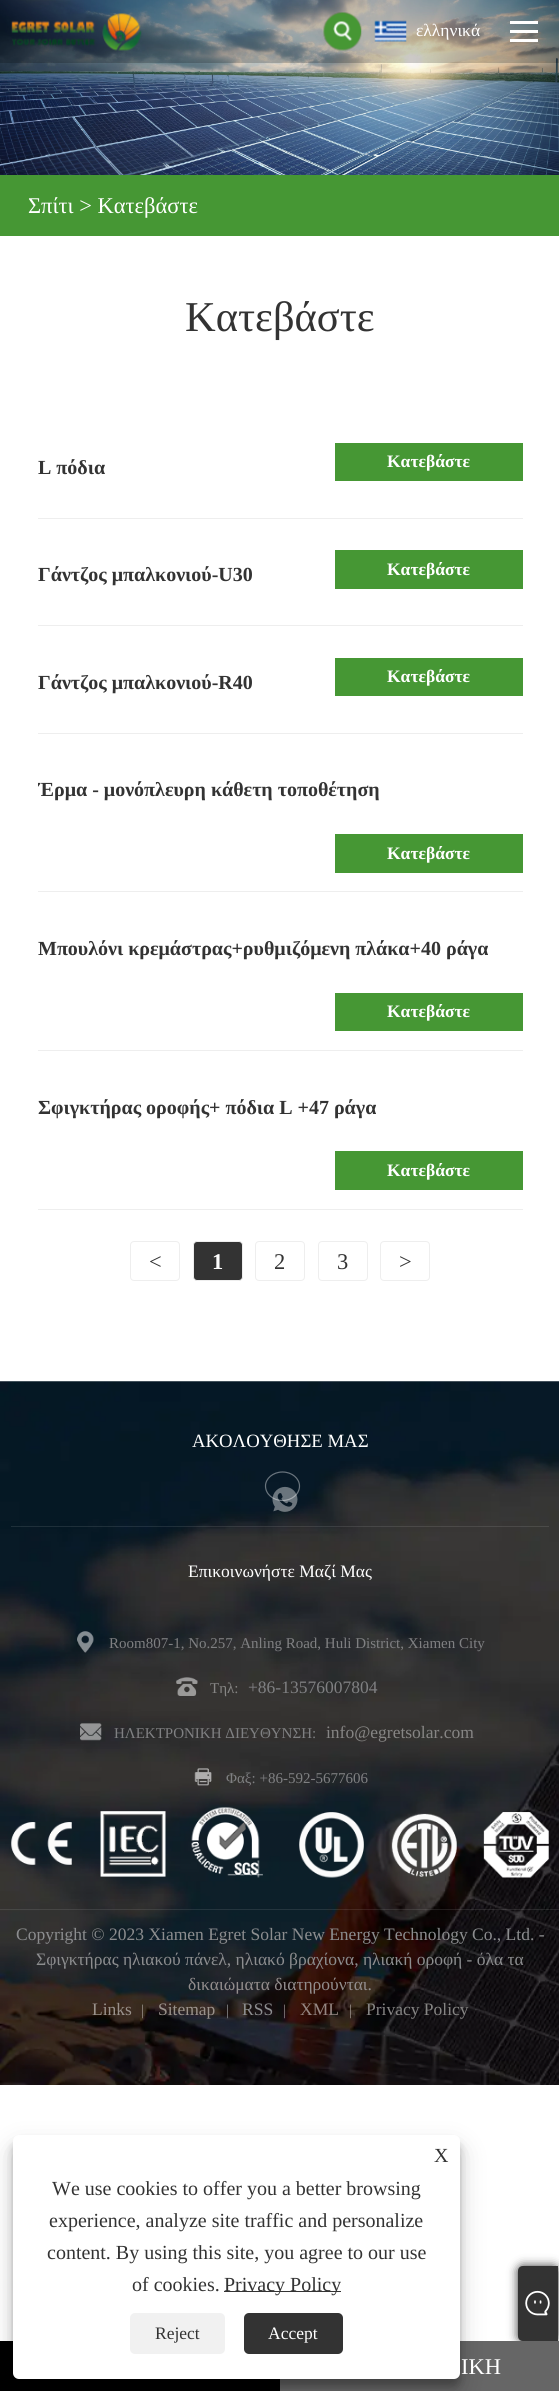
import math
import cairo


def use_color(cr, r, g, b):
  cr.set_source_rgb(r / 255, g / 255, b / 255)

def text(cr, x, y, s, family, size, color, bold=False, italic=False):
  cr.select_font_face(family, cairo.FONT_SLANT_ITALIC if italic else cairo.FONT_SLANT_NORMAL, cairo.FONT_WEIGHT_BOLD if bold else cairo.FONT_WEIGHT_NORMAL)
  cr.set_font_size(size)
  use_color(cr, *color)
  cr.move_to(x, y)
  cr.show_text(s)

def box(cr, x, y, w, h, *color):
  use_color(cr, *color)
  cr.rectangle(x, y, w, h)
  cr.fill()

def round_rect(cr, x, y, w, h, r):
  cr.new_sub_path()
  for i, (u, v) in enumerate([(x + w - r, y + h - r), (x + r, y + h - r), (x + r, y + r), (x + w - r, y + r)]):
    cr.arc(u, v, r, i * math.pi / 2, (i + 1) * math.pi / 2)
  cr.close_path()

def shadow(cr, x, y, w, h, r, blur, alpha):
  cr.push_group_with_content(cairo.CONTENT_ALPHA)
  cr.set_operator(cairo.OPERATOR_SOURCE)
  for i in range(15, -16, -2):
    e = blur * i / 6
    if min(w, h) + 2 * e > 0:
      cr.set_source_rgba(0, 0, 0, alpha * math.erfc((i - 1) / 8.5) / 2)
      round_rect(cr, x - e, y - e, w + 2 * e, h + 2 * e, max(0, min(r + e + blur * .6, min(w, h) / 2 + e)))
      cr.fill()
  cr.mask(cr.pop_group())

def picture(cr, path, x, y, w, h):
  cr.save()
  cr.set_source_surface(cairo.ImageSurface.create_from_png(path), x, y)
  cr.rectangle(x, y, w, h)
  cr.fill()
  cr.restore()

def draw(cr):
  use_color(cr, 255, 255, 255)
  cr.paint()
  picture(cr, "img_01.png", 0, 0, 559, 175)
  cr.set_source_rgba(0, 0, 0, 0.2)
  cr.rectangle(0, 0, 559, 63)
  cr.fill()
  picture(cr, "img_02.png", 11, 13, 131, 38)
  picture(cr, "img_03.png", 323, 12, 39, 39)
  picture(cr, "img_04.png", 374, 20, 33, 22)
  box(cr, 510, 21, 28, 3, 255, 255, 255)
  box(cr, 510, 30, 28, 3, 255, 255, 255)
  box(cr, 510, 39, 28, 3, 255, 255, 255)
  box(cr, 0, 175, 559, 61, 70, 151, 52)
  box(cr, 38, 518, 485, 1, 238, 238, 238)
  box(cr, 335, 443, 188, 38, 70, 151, 52)
  box(cr, 38, 625, 485, 1, 238, 238, 238)
  box(cr, 335, 550, 188, 39, 70, 151, 52)
  box(cr, 38, 733, 485, 1, 238, 238, 238)
  box(cr, 335, 658, 188, 38, 70, 151, 52)
  box(cr, 38, 891, 485, 1, 238, 238, 238)
  box(cr, 335, 834, 188, 39, 70, 151, 52)
  box(cr, 38, 1050, 485, 1, 238, 238, 238)
  box(cr, 335, 993, 188, 38, 70, 151, 52)
  box(cr, 38, 1209, 485, 1, 238, 238, 238)
  box(cr, 335, 1151, 188, 39, 70, 151, 52)
  round_rect(cr, 130.5, 1241.5, 49, 39, 3.5)
  use_color(cr, 238, 238, 238)
  cr.set_line_width(1)
  cr.stroke()
  use_color(cr, 51, 51, 51)
  round_rect(cr, 193.5, 1241.5, 49, 39, 3.5)
  cr.fill_preserve()
  use_color(cr, 238, 238, 238)
  cr.stroke()
  round_rect(cr, 255.5, 1241.5, 49, 39, 3.5)
  cr.stroke()
  round_rect(cr, 318.5, 1241.5, 49, 39, 3.5)
  cr.stroke()
  round_rect(cr, 380.5, 1241.5, 49, 39, 3.5)
  cr.stroke()
  picture(cr, "img_05.png", 0, 1381, 559, 704)
  cr.set_source_rgba(1, 1, 1, 0.1)
  cr.rectangle(11, 1526, 538, 1)
  cr.fill()
  cr.new_path()
  cr.move_to(282.5, 1472)
  cr.curve_to(292, 1472, 299.5, 1478.5, 299.5, 1486)
  cr.curve_to(299.5, 1494, 292, 1500.5, 282.5, 1500.5)
  cr.curve_to(273, 1500.5, 265.5, 1494, 265.5, 1486)
  cr.curve_to(265.5, 1478.5, 273, 1472, 282.5, 1472)
  cr.close_path()
  use_color(cr, 106, 117, 126)
  cr.set_line_width(1.2)
  cr.stroke()
  picture(cr, "img_06.png", 272, 1486, 26, 26)
  picture(cr, "img_07.png", 77, 1631, 17, 22)
  picture(cr, "img_08.png", 176, 1677, 22, 19)
  picture(cr, "img_09.png", 80, 1723, 22, 18)
  picture(cr, "img_10.png", 194, 1768, 18, 18)
  picture(cr, "img_11.png", 11, 1807, 538, 71)
  cr.set_source_rgba(1, 1, 1, 0.1)
  cr.rectangle(0, 1909, 559, 1)
  cr.fill()
  box(cr, 0, 2341, 280, 50, 0, 0, 0)
  use_color(cr, 51, 51, 51)
  shadow(cr, 518, 2266, 40, 75, 5, 5, 1)
  box(cr, 280, 2341, 279, 50, 102, 102, 102)
  use_color(cr, 0, 0, 0)
  shadow(cr, 13, 2143, 447, 243, 6, 4, 0.23)
  shadow(cr, 13, 2148, 447, 243, 6, 12.5, 0.19)
  use_color(cr, 255, 255, 255)
  round_rect(cr, 13, 2135, 447, 244, 6)
  cr.fill()
  box(cr, 224, 2291, 117, 1, 51, 51, 51)
  use_color(cr, 241, 241, 241)
  round_rect(cr, 130, 2313, 95, 41, 5)
  cr.fill()
  use_color(cr, 51, 51, 51)
  round_rect(cr, 244, 2313, 99, 41, 5)
  cr.fill()
  cr.new_path()
  cr.move_to(523, 2266)
  cr.line_to(558, 2266)
  cr.line_to(558, 2341)
  cr.line_to(523, 2341)
  cr.curve_to(520, 2341, 518, 2339, 518, 2336)
  cr.line_to(518, 2271)
  cr.curve_to(518, 2268, 520, 2266, 523, 2266)
  cr.close_path()
  cr.fill()
  picture(cr, "img_12.png", 525, 2290, 25, 26)
  text(cr, 416, 36, "ελληνικά", "Liberation Serif", 17.5, (255, 255, 255))
  text(cr, 28, 213, "Σπίτι > Κατεβάστε", "Liberation Serif", 22.5, (255, 255, 255))
  text(cr, 185, 331, "Κατεβάστε", "Liberation Serif", 42.5, (51, 51, 51))
  text(cr, 38, 474, "L πόδια", "Liberation Serif", 20, (51, 51, 51), bold=True)
  text(cr, 387, 467, "Κατεβάστε", "Liberation Serif", 17.5, (255, 255, 255), bold=True)
  text(cr, 38, 581, "Γάντζος μπαλκονιού-U30", "Liberation Serif", 20, (51, 51, 51), bold=True)
  text(cr, 387, 575, "Κατεβάστε", "Liberation Serif", 17.5, (255, 255, 255), bold=True)
  text(cr, 38, 689, "Γάντζος μπαλκονιού-R40", "Liberation Serif", 20, (51, 51, 51), bold=True)
  text(cr, 387, 682, "Κατεβάστε", "Liberation Serif", 17.5, (255, 255, 255), bold=True)
  cr.save()
  cr.rectangle(38, 778, 342, 25)
  cr.clip()
  text(cr, 38, 796, "Έρμα - μονόπλευρη κάθετη τοποθέτηση", "Liberation Serif", 20, (51, 51, 51), bold=True)
  cr.restore()
  text(cr, 387, 859, "Κατεβάστε", "Liberation Serif", 17.5, (255, 255, 255), bold=True)
  text(cr, 38, 955, "Μπουλόνι κρεμάστρας+ρυθμιζόμενη πλάκα+40 ράγα", "Liberation Serif", 20, (51, 51, 51), bold=True)
  text(cr, 387, 1017, "Κατεβάστε", "Liberation Serif", 17.5, (255, 255, 255), bold=True)
  text(cr, 38, 1114, "Σφιγκτήρας οροφής+ πόδια L +47 ράγα", "Liberation Serif", 20, (51, 51, 51), bold=True)
  text(cr, 387, 1176, "Κατεβάστε", "Liberation Serif", 17.5, (255, 255, 255), bold=True)
  text(cr, 149, 1269, "<", "Liberation Serif", 22.5, (51, 51, 51))
  text(cr, 212, 1269, "1", "Liberation Serif", 22.5, (255, 255, 255), bold=True)
  text(cr, 274, 1269, "2", "Liberation Serif", 22.5, (51, 51, 51))
  text(cr, 337, 1269, "3", "Liberation Serif", 22.5, (51, 51, 51))
  text(cr, 399, 1269, ">", "Liberation Serif", 22.5, (51, 51, 51))
  text(cr, 192, 1447, "ΑΚΟΛΟΥΘΗΣΕ ΜΑΣ", "Liberation Serif", 18.75, (255, 255, 255))
  text(cr, 188, 1577, "Επικοινωνήστε Μαζί Μας", "Liberation Serif", 17.5, (255, 255, 255))
  text(cr, 109, 1648, "Room807-1, No.257, Anling Road, Huli District, Xiamen City", "Liberation Serif", 15, (127, 128, 130))
  text(cr, 210, 1693, "Τηλ:", "Liberation Serif", 15, (134, 133, 132))
  text(cr, 248, 1693, "+86-13576007804", "Liberation Serif", 17.5, (127, 128, 130))
  text(cr, 114, 1738, "ΗΛΕΚΤΡΟΝΙΚΗ ΔΙΕΥΘΥΝΣΗ:", "Liberation Serif", 15, (127, 128, 130))
  text(cr, 326, 1738, "info@egretsolar.com", "Liberation Serif", 17.5, (134, 133, 132))
  text(cr, 226, 1783, "Φαξ: +86-592-5677606", "Liberation Serif", 15, (127, 128, 130))
  text(cr, 16, 1940, "Copyright © 2023 Xiamen Egret Solar New Energy Technology Co., Ltd. -", "Liberation Serif", 17.5, (140, 141, 143))
  text(cr, 36, 1965, "Σφιγκτήρας ηλιακού πάνελ, ηλιακό βραχίονα, ηλιακή οροφή - όλα τα", "Liberation Serif", 17.5, (140, 141, 143))
  text(cr, 188, 1990, "δικαιώματα διατηρούνται.", "Liberation Serif", 17.5, (146, 141, 141))
  text(cr, 92, 2015, "Links", "Liberation Serif", 17.5, (154, 146, 140))
  text(cr, 141, 2015, "|", "Liberation Serif", 15, (154, 146, 140))
  text(cr, 158, 2015, "Sitemap", "Liberation Serif", 17.5, (154, 146, 140))
  text(cr, 226, 2015, "|", "Liberation Serif", 15, (140, 141, 143))
  text(cr, 242, 2015, "RSS", "Liberation Serif", 17.5, (140, 141, 143))
  text(cr, 283, 2015, "|", "Liberation Serif", 15, (140, 133, 134))
  text(cr, 300, 2015, "XML", "Liberation Serif", 17.5, (149, 134, 130))
  text(cr, 349, 2015, "|", "Liberation Serif", 15, (154, 146, 140))
  text(cr, 366, 2015, "Privacy Policy", "Liberation Serif", 17.5, (134, 133, 132))
  text(cr, 461, 2374, "ΙΚΗ", "Liberation Serif", 22.5, (255, 255, 255))
  text(cr, 434, 2162, "X", "Liberation Serif", 20, (51, 51, 51))
  text(cr, 52, 2195, "We use cookies to offer you a better browsing", "Liberation Serif", 20, (51, 51, 51))
  text(cr, 49, 2227, "experience, analyze site traffic and personalize", "Liberation Serif", 20, (51, 51, 51))
  text(cr, 47, 2259, "content. By using this site, you agree to our use", "Liberation Serif", 20, (51, 51, 51))
  text(cr, 132, 2291, "of cookies.", "Liberation Serif", 20, (51, 51, 51))
  text(cr, 224, 2291, "Privacy Policy", "Liberation Serif", 20, (51, 51, 51))
  text(cr, 155, 2339, "Reject", "Liberation Serif", 17.5, (51, 51, 51))
  text(cr, 268, 2339, "Accept", "Liberation Serif", 17.5, (255, 255, 255))


surface = cairo.ImageSurface(cairo.FORMAT_RGB24, 559, 2391)
cr = cairo.Context(surface)
options = cairo.FontOptions()
options.set_hint_metrics(cairo.HINT_METRICS_OFF)
options.set_hint_style(cairo.HINT_STYLE_NONE)
cr.set_font_options(options)
cr.set_miter_limit(4)
draw(cr)
surface.write_to_png("out.png")
